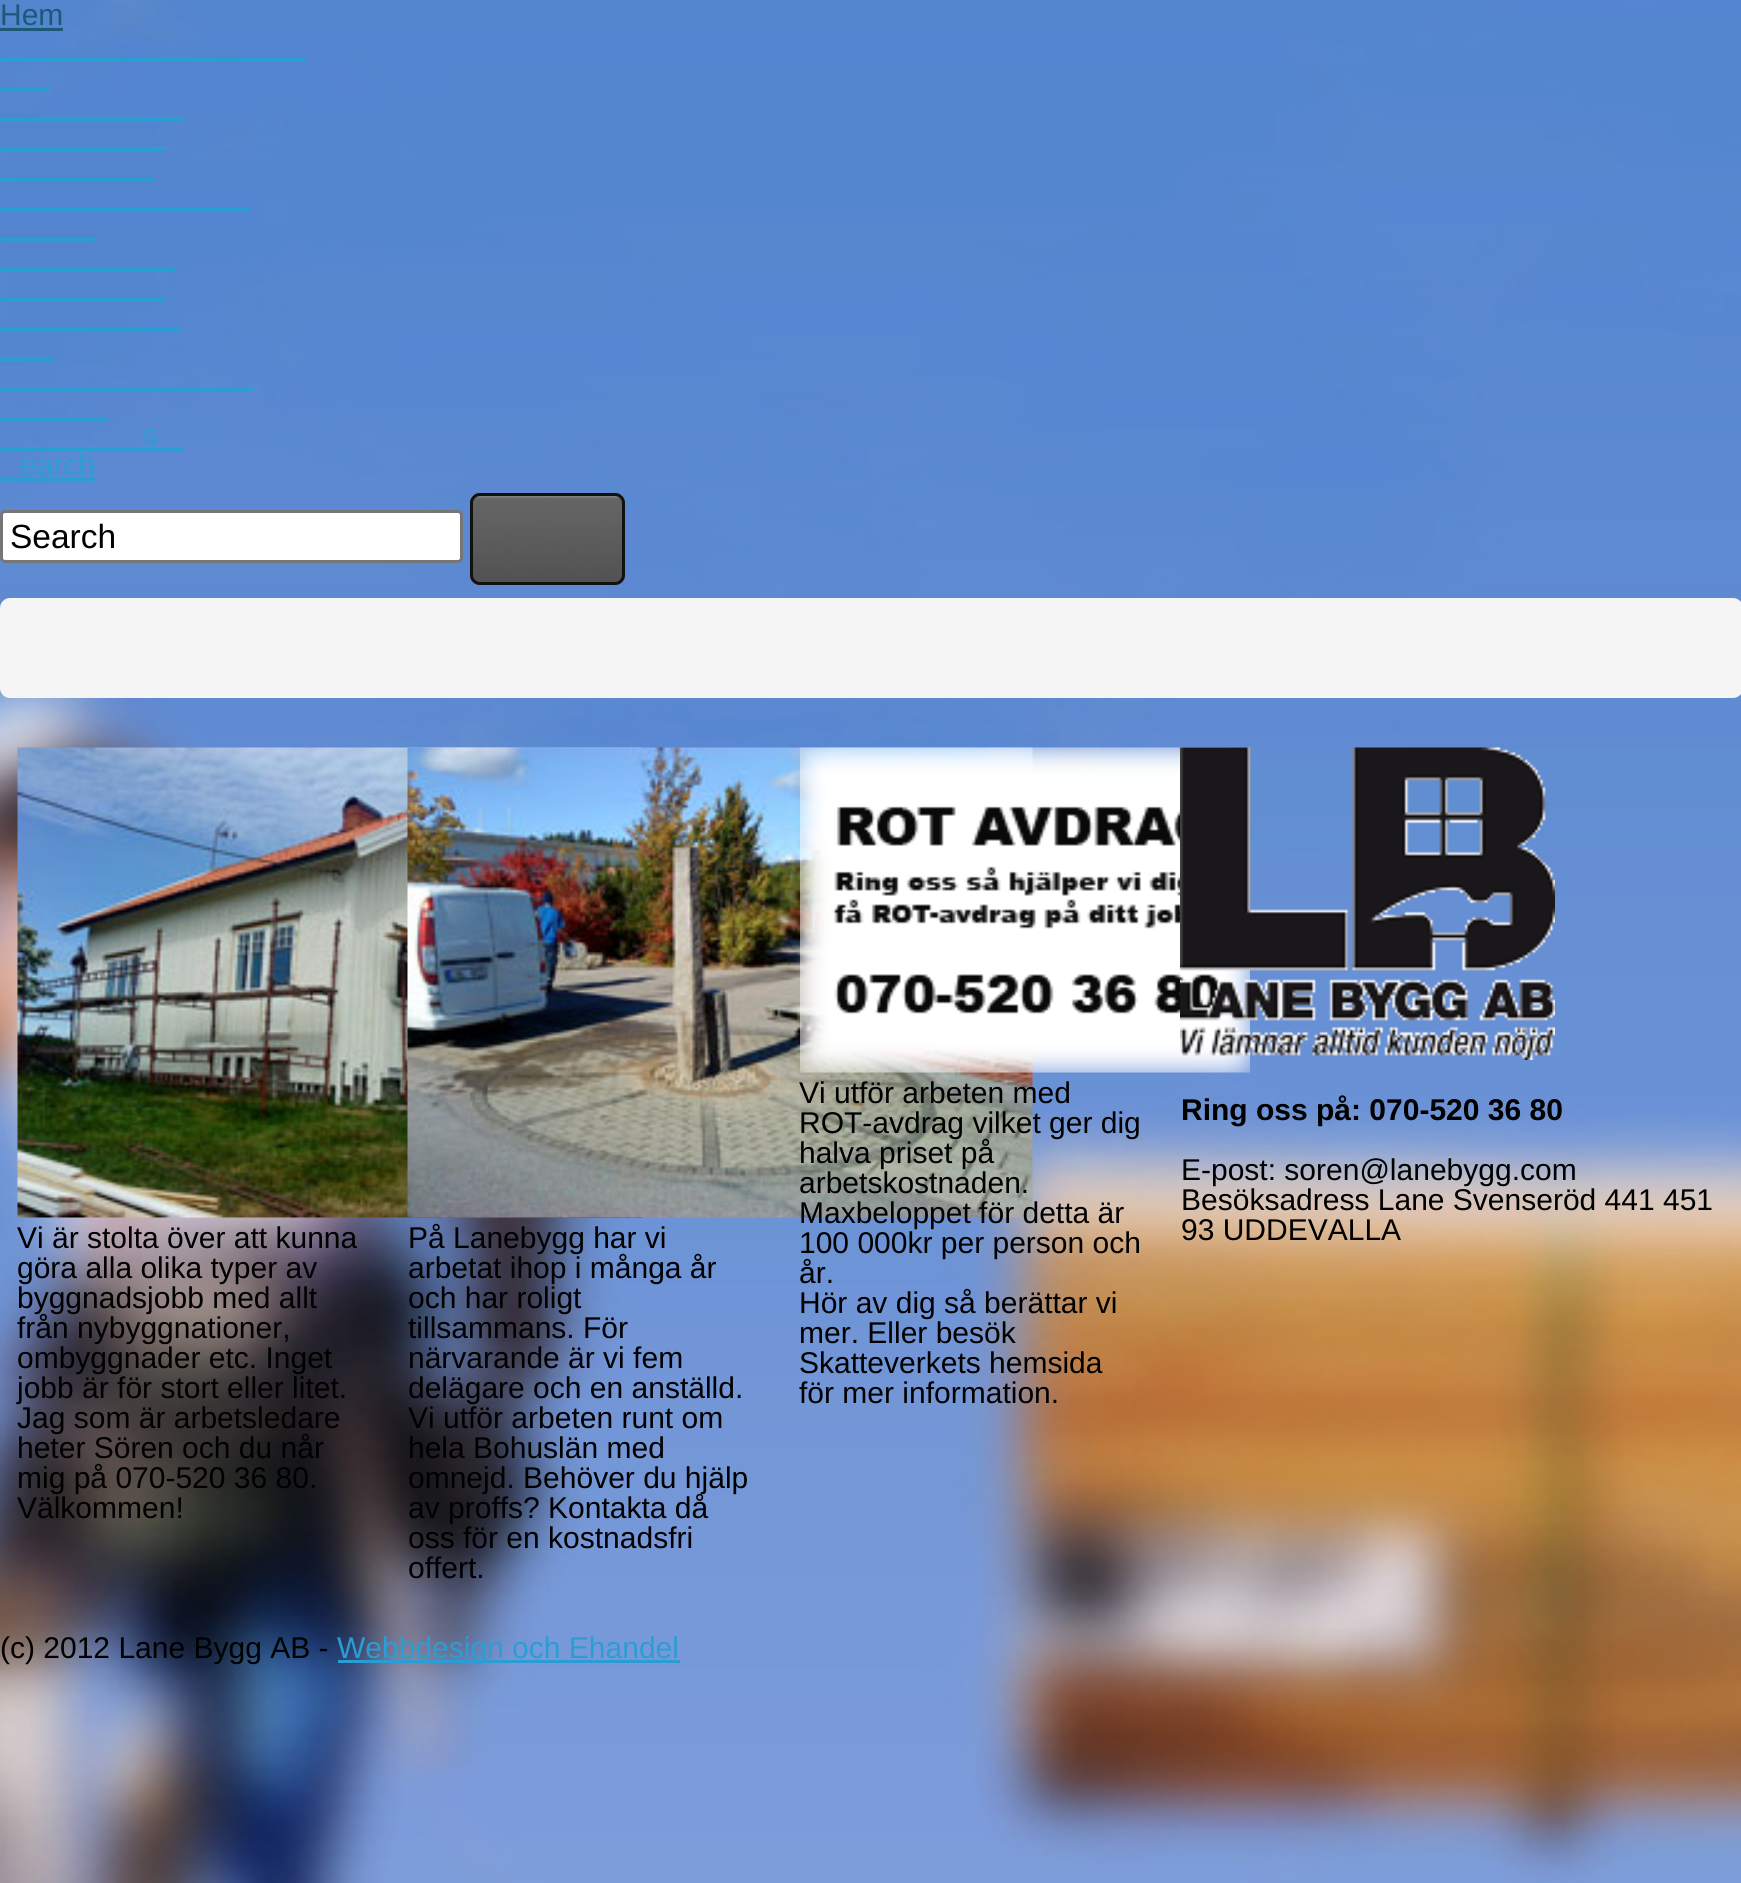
import math
import cairo


def use_color(cr, r, g, b):
  cr.set_source_rgb(r / 255, g / 255, b / 255)

def text(cr, x, y, s, family, size, color, bold=False, italic=False):
  cr.select_font_face(family, cairo.FONT_SLANT_ITALIC if italic else cairo.FONT_SLANT_NORMAL, cairo.FONT_WEIGHT_BOLD if bold else cairo.FONT_WEIGHT_NORMAL)
  cr.set_font_size(size)
  use_color(cr, *color)
  cr.move_to(x, y)
  cr.show_text(s)

def box(cr, x, y, w, h, *color):
  use_color(cr, *color)
  cr.rectangle(x, y, w, h)
  cr.fill()

def round_rect(cr, x, y, w, h, r):
  cr.new_sub_path()
  for i, (u, v) in enumerate([(x + w - r, y + h - r), (x + r, y + h - r), (x + r, y + r), (x + w - r, y + r)]):
    cr.arc(u, v, r, i * math.pi / 2, (i + 1) * math.pi / 2)
  cr.close_path()

def picture(cr, path, x, y, w, h):
  cr.save()
  cr.set_source_surface(cairo.ImageSurface.create_from_png(path), x, y)
  cr.rectangle(x, y, w, h)
  cr.fill()
  cr.restore()

def draw(cr):
  use_color(cr, 255, 255, 255)
  cr.paint()
  picture(cr, "img_01.png", 0, 0, 1741, 1883)
  box(cr, 0, 28, 63, 3, 26, 90, 120)
  box(cr, 0, 58, 305, 3, 42, 158, 212)
  box(cr, 0, 88, 50, 3, 42, 158, 212)
  box(cr, 0, 118, 183, 3, 42, 158, 212)
  box(cr, 0, 148, 163, 3, 42, 158, 212)
  box(cr, 0, 178, 153, 3, 42, 158, 212)
  box(cr, 0, 208, 250, 3, 42, 158, 212)
  box(cr, 0, 238, 95, 3, 42, 158, 212)
  box(cr, 0, 268, 175, 3, 42, 158, 212)
  box(cr, 0, 298, 165, 3, 42, 158, 212)
  box(cr, 0, 328, 180, 3, 42, 158, 212)
  box(cr, 0, 358, 53, 3, 42, 158, 212)
  box(cr, 0, 388, 253, 3, 42, 158, 212)
  box(cr, 0, 418, 108, 3, 42, 158, 212)
  box(cr, 0, 448, 183, 3, 42, 158, 212)
  box(cr, 0, 478, 95, 3, 42, 158, 212)
  use_color(cr, 255, 255, 255)
  round_rect(cr, 1.5, 511.5, 460, 50, 3.5)
  cr.fill_preserve()
  use_color(cr, 118, 118, 118)
  cr.set_line_width(3)
  cr.stroke()
  use_color(cr, 77, 77, 77)
  round_rect(cr, 470, 493, 155, 92, 10)
  cr.fill()
  picture(cr, "img_02.png", 470, 495, 155, 90)
  round_rect(cr, 471.5, 494.5, 152, 89, 8.5)
  use_color(cr, 17, 17, 17)
  cr.stroke()
  use_color(cr, 245, 245, 245)
  round_rect(cr, 0, 598, 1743, 100, 10)
  cr.fill()
  picture(cr, "img_03.png", 17, 747, 626, 471)
  picture(cr, "img_04.png", 407, 747, 626, 471)
  picture(cr, "img_05.png", 800, 747, 450, 326)
  picture(cr, "img_06.png", 1180, 747, 375, 313)
  box(cr, 338, 1660, 342, 3, 42, 158, 212)
  text(cr, 0, 25, "Hem", "Liberation Sans", 30, (26, 90, 120))
  text(cr, 143, 445, "s", "Liberation Sans", 30, (42, 158, 212))
  text(cr, 20, 475, "earch", "Liberation Sans", 30, (42, 158, 212))
  text(cr, 10, 548, "Search", "Liberation Sans", 33.5, (0, 0, 0))
  text(cr, 17, 1248, "Vi är stolta över att kunna", "Liberation Sans", 30, (0, 0, 0))
  text(cr, 17, 1278, "göra alla olika typer av", "Liberation Sans", 30, (0, 0, 0))
  text(cr, 17, 1308, "byggnadsjobb med allt", "Liberation Sans", 30, (0, 0, 0))
  text(cr, 17, 1338, "från nybyggnationer,", "Liberation Sans", 30, (0, 0, 0))
  text(cr, 17, 1368, "ombyggnader etc. Inget", "Liberation Sans", 30, (0, 0, 0))
  text(cr, 17, 1398, "jobb är för stort eller litet.", "Liberation Sans", 30, (0, 0, 0))
  text(cr, 17, 1428, "Jag som är arbetsledare", "Liberation Sans", 30, (0, 0, 0))
  text(cr, 17, 1458, "heter Sören och du når", "Liberation Sans", 30, (0, 0, 0))
  text(cr, 17, 1488, "mig på 070-520 36 80.", "Liberation Sans", 30, (0, 0, 0))
  text(cr, 17, 1518, "Välkommen!", "Liberation Sans", 30, (0, 0, 0))
  text(cr, 408, 1248, "På Lanebygg har vi", "Liberation Sans", 30, (0, 0, 0))
  text(cr, 408, 1278, "arbetat ihop i många år", "Liberation Sans", 30, (0, 0, 0))
  text(cr, 408, 1308, "och har roligt", "Liberation Sans", 30, (0, 0, 0))
  text(cr, 408, 1338, "tillsammans. För", "Liberation Sans", 30, (0, 0, 0))
  text(cr, 408, 1368, "närvarande är vi fem", "Liberation Sans", 30, (0, 0, 0))
  text(cr, 408, 1398, "delägare och en anställd.", "Liberation Sans", 30, (0, 0, 0))
  text(cr, 408, 1428, "Vi utför arbeten runt om", "Liberation Sans", 30, (0, 0, 0))
  text(cr, 408, 1458, "hela Bohuslän med", "Liberation Sans", 30, (0, 0, 0))
  text(cr, 408, 1488, "omnejd. Behöver du hjälp", "Liberation Sans", 30, (0, 0, 0))
  text(cr, 408, 1518, "av proffs? Kontakta då", "Liberation Sans", 30, (0, 0, 0))
  text(cr, 408, 1548, "oss för en kostnadsfri", "Liberation Sans", 30, (0, 0, 0))
  text(cr, 408, 1578, "offert.", "Liberation Sans", 30, (0, 0, 0))
  text(cr, 799, 1103, "Vi utför arbeten med", "Liberation Sans", 30, (0, 0, 0))
  text(cr, 799, 1133, "ROT-avdrag vilket ger dig", "Liberation Sans", 30, (0, 0, 0))
  text(cr, 799, 1163, "halva priset på", "Liberation Sans", 30, (0, 0, 0))
  text(cr, 799, 1193, "arbetskostnaden.", "Liberation Sans", 30, (0, 0, 0))
  text(cr, 799, 1223, "Maxbeloppet för detta är", "Liberation Sans", 30, (0, 0, 0))
  text(cr, 799, 1253, "100 000kr per person och", "Liberation Sans", 30, (0, 0, 0))
  text(cr, 799, 1283, "år.", "Liberation Sans", 30, (0, 0, 0))
  text(cr, 799, 1313, "Hör av dig så berättar vi", "Liberation Sans", 30, (0, 0, 0))
  text(cr, 799, 1343, "mer. Eller besök", "Liberation Sans", 30, (0, 0, 0))
  text(cr, 799, 1373, "Skatteverkets hemsida", "Liberation Sans", 30, (0, 0, 0))
  text(cr, 799, 1403, "för mer information.", "Liberation Sans", 30, (0, 0, 0))
  text(cr, 1181, 1120, "Ring oss på: 070-520 36 80", "Liberation Sans", 30, (0, 0, 0), bold=True)
  text(cr, 1181, 1180, "E-post: soren@lanebygg.com", "Liberation Sans", 30, (0, 0, 0))
  text(cr, 1181, 1210, "Besöksadress Lane Svenseröd 441 451", "Liberation Sans", 30, (0, 0, 0))
  text(cr, 1181, 1240, "93 UDDEVALLA", "Liberation Sans", 30, (0, 0, 0))
  text(cr, 0, 1658, "(c) 2012 Lane Bygg AB -", "Liberation Sans", 30, (0, 0, 0))
  text(cr, 337, 1658, "Webbdesign och Ehandel", "Liberation Sans", 30, (42, 158, 212))


surface = cairo.ImageSurface(cairo.FORMAT_RGB24, 1741, 1883)
cr = cairo.Context(surface)
options = cairo.FontOptions()
options.set_hint_metrics(cairo.HINT_METRICS_OFF)
options.set_hint_style(cairo.HINT_STYLE_NONE)
cr.set_font_options(options)
cr.set_miter_limit(4)
draw(cr)
surface.write_to_png("out.png")
